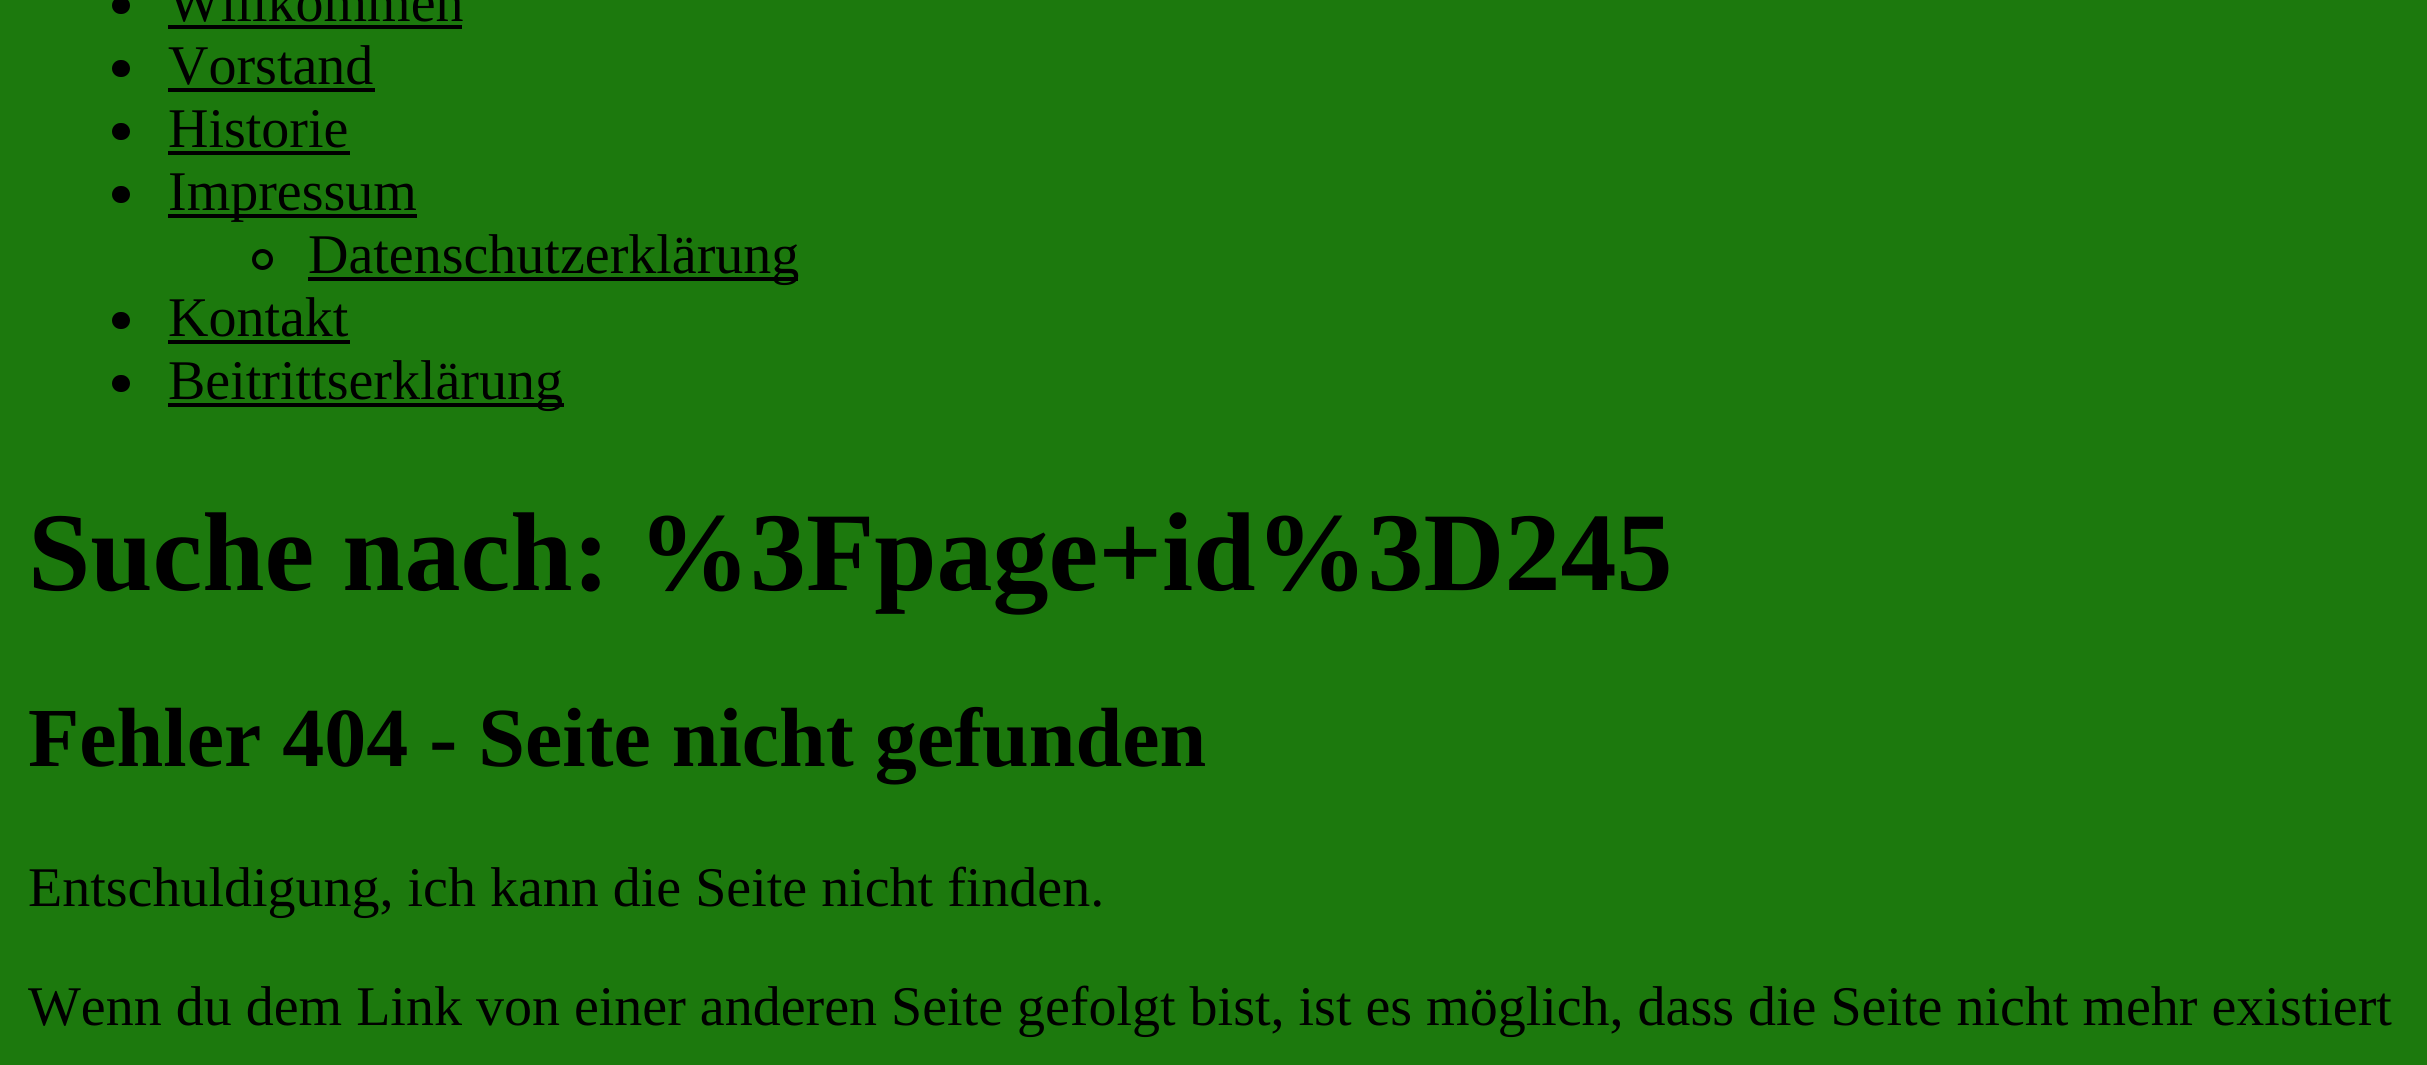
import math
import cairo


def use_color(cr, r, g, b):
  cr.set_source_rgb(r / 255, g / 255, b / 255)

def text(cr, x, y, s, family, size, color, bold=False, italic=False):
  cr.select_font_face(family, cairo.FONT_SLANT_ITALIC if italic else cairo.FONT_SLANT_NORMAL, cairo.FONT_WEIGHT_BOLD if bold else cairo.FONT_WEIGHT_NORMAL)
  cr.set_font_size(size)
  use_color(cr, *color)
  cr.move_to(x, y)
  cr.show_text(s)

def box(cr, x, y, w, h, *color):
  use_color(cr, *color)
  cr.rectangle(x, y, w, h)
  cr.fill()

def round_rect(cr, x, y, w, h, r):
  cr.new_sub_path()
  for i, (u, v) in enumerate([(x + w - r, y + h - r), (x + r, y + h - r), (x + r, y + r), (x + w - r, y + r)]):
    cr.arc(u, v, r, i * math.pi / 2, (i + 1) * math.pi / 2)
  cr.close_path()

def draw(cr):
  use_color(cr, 28, 121, 13)
  cr.paint()
  use_color(cr, 0, 0, 0)
  round_rect(cr, 112, -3, 18, 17, 8.5)
  cr.fill()
  box(cr, 168, 25, 294, 4, 0, 0, 0)
  round_rect(cr, 112, 60, 18, 17, 8.5)
  cr.fill()
  box(cr, 168, 88, 207, 4, 0, 0, 0)
  round_rect(cr, 112, 123, 18, 17, 8.5)
  cr.fill()
  box(cr, 168, 151, 182, 4, 0, 0, 0)
  round_rect(cr, 112, 186, 18, 17, 8.5)
  cr.fill()
  box(cr, 168, 214, 249, 4, 0, 0, 0)
  cr.arc(262.5, 259.5, 8.5, 0, 2 * math.pi)
  cr.set_line_width(4)
  cr.stroke()
  box(cr, 308, 277, 490, 4, 0, 0, 0)
  round_rect(cr, 112, 312, 18, 17, 8.5)
  cr.fill()
  box(cr, 168, 340, 182, 4, 0, 0, 0)
  round_rect(cr, 112, 375, 18, 17, 8.5)
  cr.fill()
  box(cr, 168, 403, 396, 4, 0, 0, 0)
  text(cr, 168, 21, "Willkommen", "Liberation Serif", 56, (0, 0, 0))
  text(cr, 168, 84, "Vorstand", "Liberation Serif", 56, (0, 0, 0))
  text(cr, 168, 147, "Historie", "Liberation Serif", 56, (0, 0, 0))
  text(cr, 168, 210, "Impressum", "Liberation Serif", 56, (0, 0, 0))
  text(cr, 308, 273, "Datenschutzerklärung", "Liberation Serif", 56, (0, 0, 0))
  text(cr, 168, 336, "Kontakt", "Liberation Serif", 56, (0, 0, 0))
  text(cr, 168, 399, "Beitrittserklärung", "Liberation Serif", 56, (0, 0, 0))
  text(cr, 28, 590, "Suche nach: %3Fpage+id%3D245", "Liberation Serif", 112, (0, 0, 0), bold=True)
  text(cr, 28, 766, "Fehler 404 - Seite nicht gefunden", "Liberation Serif", 84, (0, 0, 0), bold=True)
  text(cr, 28, 906, "Entschuldigung, ich kann die Seite nicht finden.", "Liberation Serif", 56, (0, 0, 0))
  text(cr, 28, 1025, "Wenn du dem Link von einer anderen Seite gefolgt bist, ist es möglich, dass die Seite nicht mehr existiert", "Liberation Serif", 56, (0, 0, 0))


surface = cairo.ImageSurface(cairo.FORMAT_RGB24, 2427, 1065)
cr = cairo.Context(surface)
options = cairo.FontOptions()
options.set_hint_metrics(cairo.HINT_METRICS_OFF)
options.set_hint_style(cairo.HINT_STYLE_NONE)
cr.set_font_options(options)
cr.set_miter_limit(4)
draw(cr)
surface.write_to_png("out.png")
